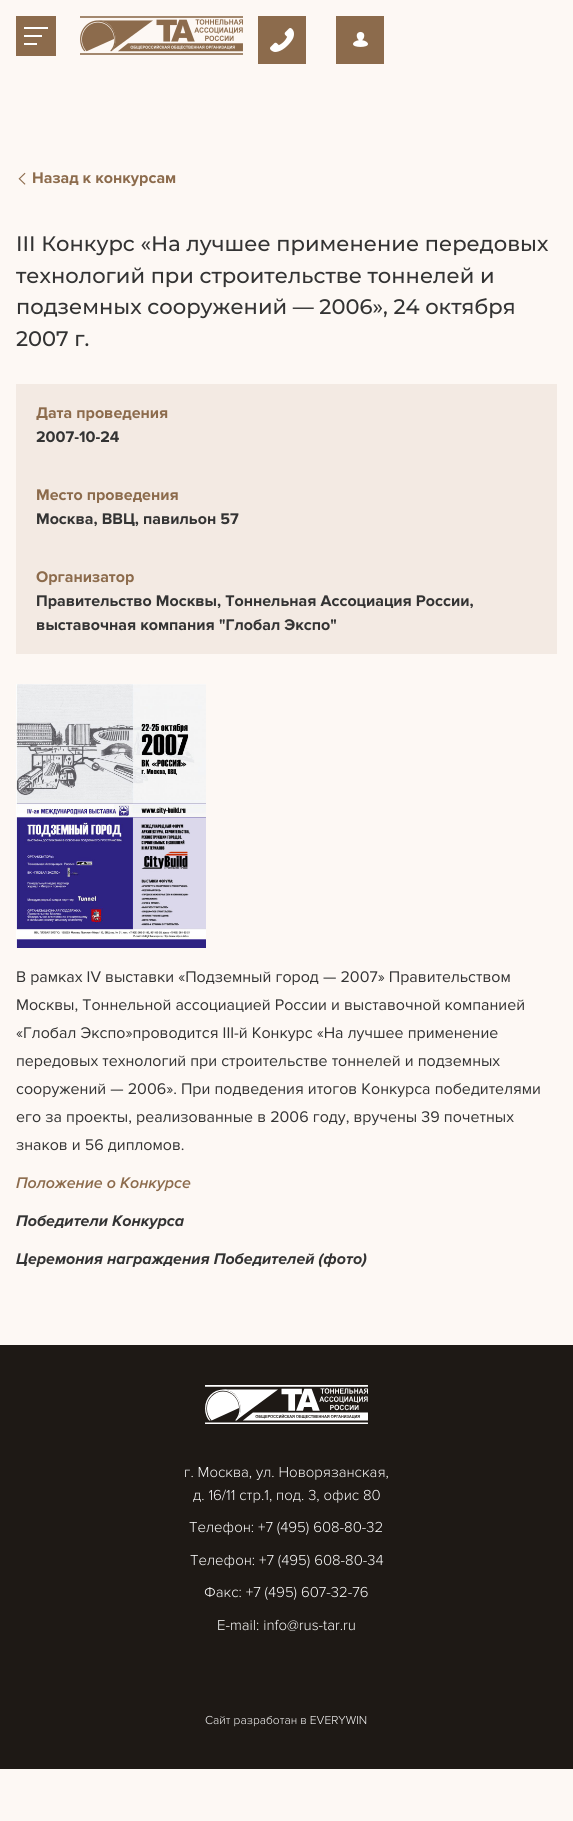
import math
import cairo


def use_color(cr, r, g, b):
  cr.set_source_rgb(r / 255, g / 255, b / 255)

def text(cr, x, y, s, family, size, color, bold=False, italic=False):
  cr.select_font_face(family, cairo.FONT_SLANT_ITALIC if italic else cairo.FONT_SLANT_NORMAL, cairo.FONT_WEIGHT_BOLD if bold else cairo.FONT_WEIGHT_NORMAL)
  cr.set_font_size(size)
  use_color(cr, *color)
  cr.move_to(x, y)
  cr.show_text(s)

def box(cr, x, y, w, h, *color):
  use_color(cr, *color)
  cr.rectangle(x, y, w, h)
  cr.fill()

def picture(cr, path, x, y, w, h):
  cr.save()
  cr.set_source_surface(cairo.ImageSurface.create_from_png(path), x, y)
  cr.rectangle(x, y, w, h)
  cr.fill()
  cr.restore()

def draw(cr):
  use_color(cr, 253, 248, 244)
  cr.paint()
  box(cr, 16, 16, 40, 40, 140, 107, 76)
  box(cr, 24, 27, 24, 2, 255, 255, 255)
  box(cr, 24, 35, 18, 2, 255, 255, 255)
  box(cr, 24, 43, 13, 2, 255, 255, 255)
  picture(cr, "img_01.png", 80, 16, 163, 39)
  box(cr, 258, 16, 48, 48, 140, 107, 76)
  picture(cr, "img_02.png", 270, 28, 24, 24)
  box(cr, 336, 16, 48, 48, 140, 107, 76)
  picture(cr, "img_03.png", 353, 31, 15, 16)
  picture(cr, "img_04.png", 18, 172, 8, 13)
  box(cr, 16, 384, 541, 270, 243, 234, 227)
  picture(cr, "img_05.png", 16, 684, 190, 264)
  box(cr, 0, 1345, 573, 424, 30, 25, 21)
  picture(cr, "img_06.png", 205, 1385, 163, 39)
  text(cr, 32, 183, "Назад к конкурсам", "Proxima Nova", 16, (140, 107, 76), bold=True)
  text(cr, 16, 251, "III Конкурс «На лучшее применение передовых", "Montserrat Medium", 21, (51, 51, 51))
  text(cr, 16, 283, "технологий при строительстве тоннелей и", "Montserrat Medium", 21, (51, 51, 51))
  text(cr, 16, 314, "подземных сооружений — 2006», 24 октября", "Montserrat Medium", 21, (51, 51, 51))
  text(cr, 16, 346, "2007 г.", "Montserrat Medium", 21, (51, 51, 51))
  text(cr, 36, 418, "Дата проведения", "Proxima Nova", 16, (140, 107, 76), bold=True)
  text(cr, 36, 442, "2007-10-24", "Proxima Nova", 16, (51, 51, 51), bold=True)
  text(cr, 36, 500, "Место проведения", "Proxima Nova", 16, (140, 107, 76), bold=True)
  text(cr, 36, 524, "Москва, ВВЦ, павильон 57", "Proxima Nova", 16, (51, 51, 51), bold=True)
  text(cr, 36, 582, "Организатор", "Proxima Nova", 16, (140, 107, 76), bold=True)
  text(cr, 36, 606, "Правительство Москвы, Тоннельная Ассоциация России,", "Proxima Nova", 16, (51, 51, 51), bold=True)
  text(cr, 36, 630, "выставочная компания \"Глобал Экспо\"", "Proxima Nova", 16, (51, 51, 51), bold=True)
  text(cr, 16, 982, "В рамках IV выставки «Подземный город — 2007» Правительством", "Proxima Nova", 16, (51, 51, 51))
  text(cr, 16, 1010, "Москвы, Тоннельной ассоциацией России и выставочной компанией", "Proxima Nova", 16, (51, 51, 51))
  text(cr, 16, 1038, "«Глобал Экспо»проводится III-й Конкурс «На лучшее применение", "Proxima Nova", 16, (51, 51, 51))
  text(cr, 16, 1066, "передовых технологий при строительстве тоннелей и подземных", "Proxima Nova", 16, (51, 51, 51))
  text(cr, 16, 1094, "сооружений — 2006». При подведения итогов Конкурса победителями", "Proxima Nova", 16, (51, 51, 51))
  text(cr, 16, 1122, "его за проекты, реализованные в 2006 году, вручены 39 почетных", "Proxima Nova", 16, (51, 51, 51))
  text(cr, 16, 1150, "знаков и 56 дипломов.", "Proxima Nova", 16, (51, 51, 51))
  text(cr, 16, 1188, "Положение о Конкурсе", "Proxima Nova SemiBold", 16, (140, 107, 76), italic=True)
  text(cr, 16, 1226, "Победители Конкурса", "Proxima Nova", 16, (51, 51, 51), bold=True, italic=True)
  text(cr, 16, 1264, "Церемония награждения Победителей (фото)", "Proxima Nova", 16, (51, 51, 51), bold=True, italic=True)
  text(cr, 184, 1477, "г. Москва, ул. Новорязанская,", "Proxima Nova Light", 15, (255, 255, 255))
  text(cr, 193, 1500, "д. 16/11 стр.1, под. 3, офис 80", "Proxima Nova Light", 15, (255, 255, 255))
  text(cr, 189, 1532, "Телефон: +7 (495) 608-80-32", "Proxima Nova Light", 15, (255, 255, 255))
  text(cr, 190, 1565, "Телефон: +7 (495) 608-80-34", "Proxima Nova Light", 15, (255, 255, 255))
  text(cr, 204, 1597, "Факс: +7 (495) 607-32-76", "Proxima Nova Light", 15, (255, 255, 255))
  text(cr, 217, 1630, "E-mail: info@rus-tar.ru", "Proxima Nova Light", 15, (255, 255, 255))
  text(cr, 205, 1724, "Сайт разработан в EVERYWIN", "Proxima Nova Light", 12, (255, 255, 255))


surface = cairo.ImageSurface(cairo.FORMAT_RGB24, 573, 1821)
cr = cairo.Context(surface)
options = cairo.FontOptions()
options.set_hint_metrics(cairo.HINT_METRICS_OFF)
options.set_hint_style(cairo.HINT_STYLE_NONE)
cr.set_font_options(options)
cr.set_miter_limit(4)
draw(cr)
surface.write_to_png("out.png")
